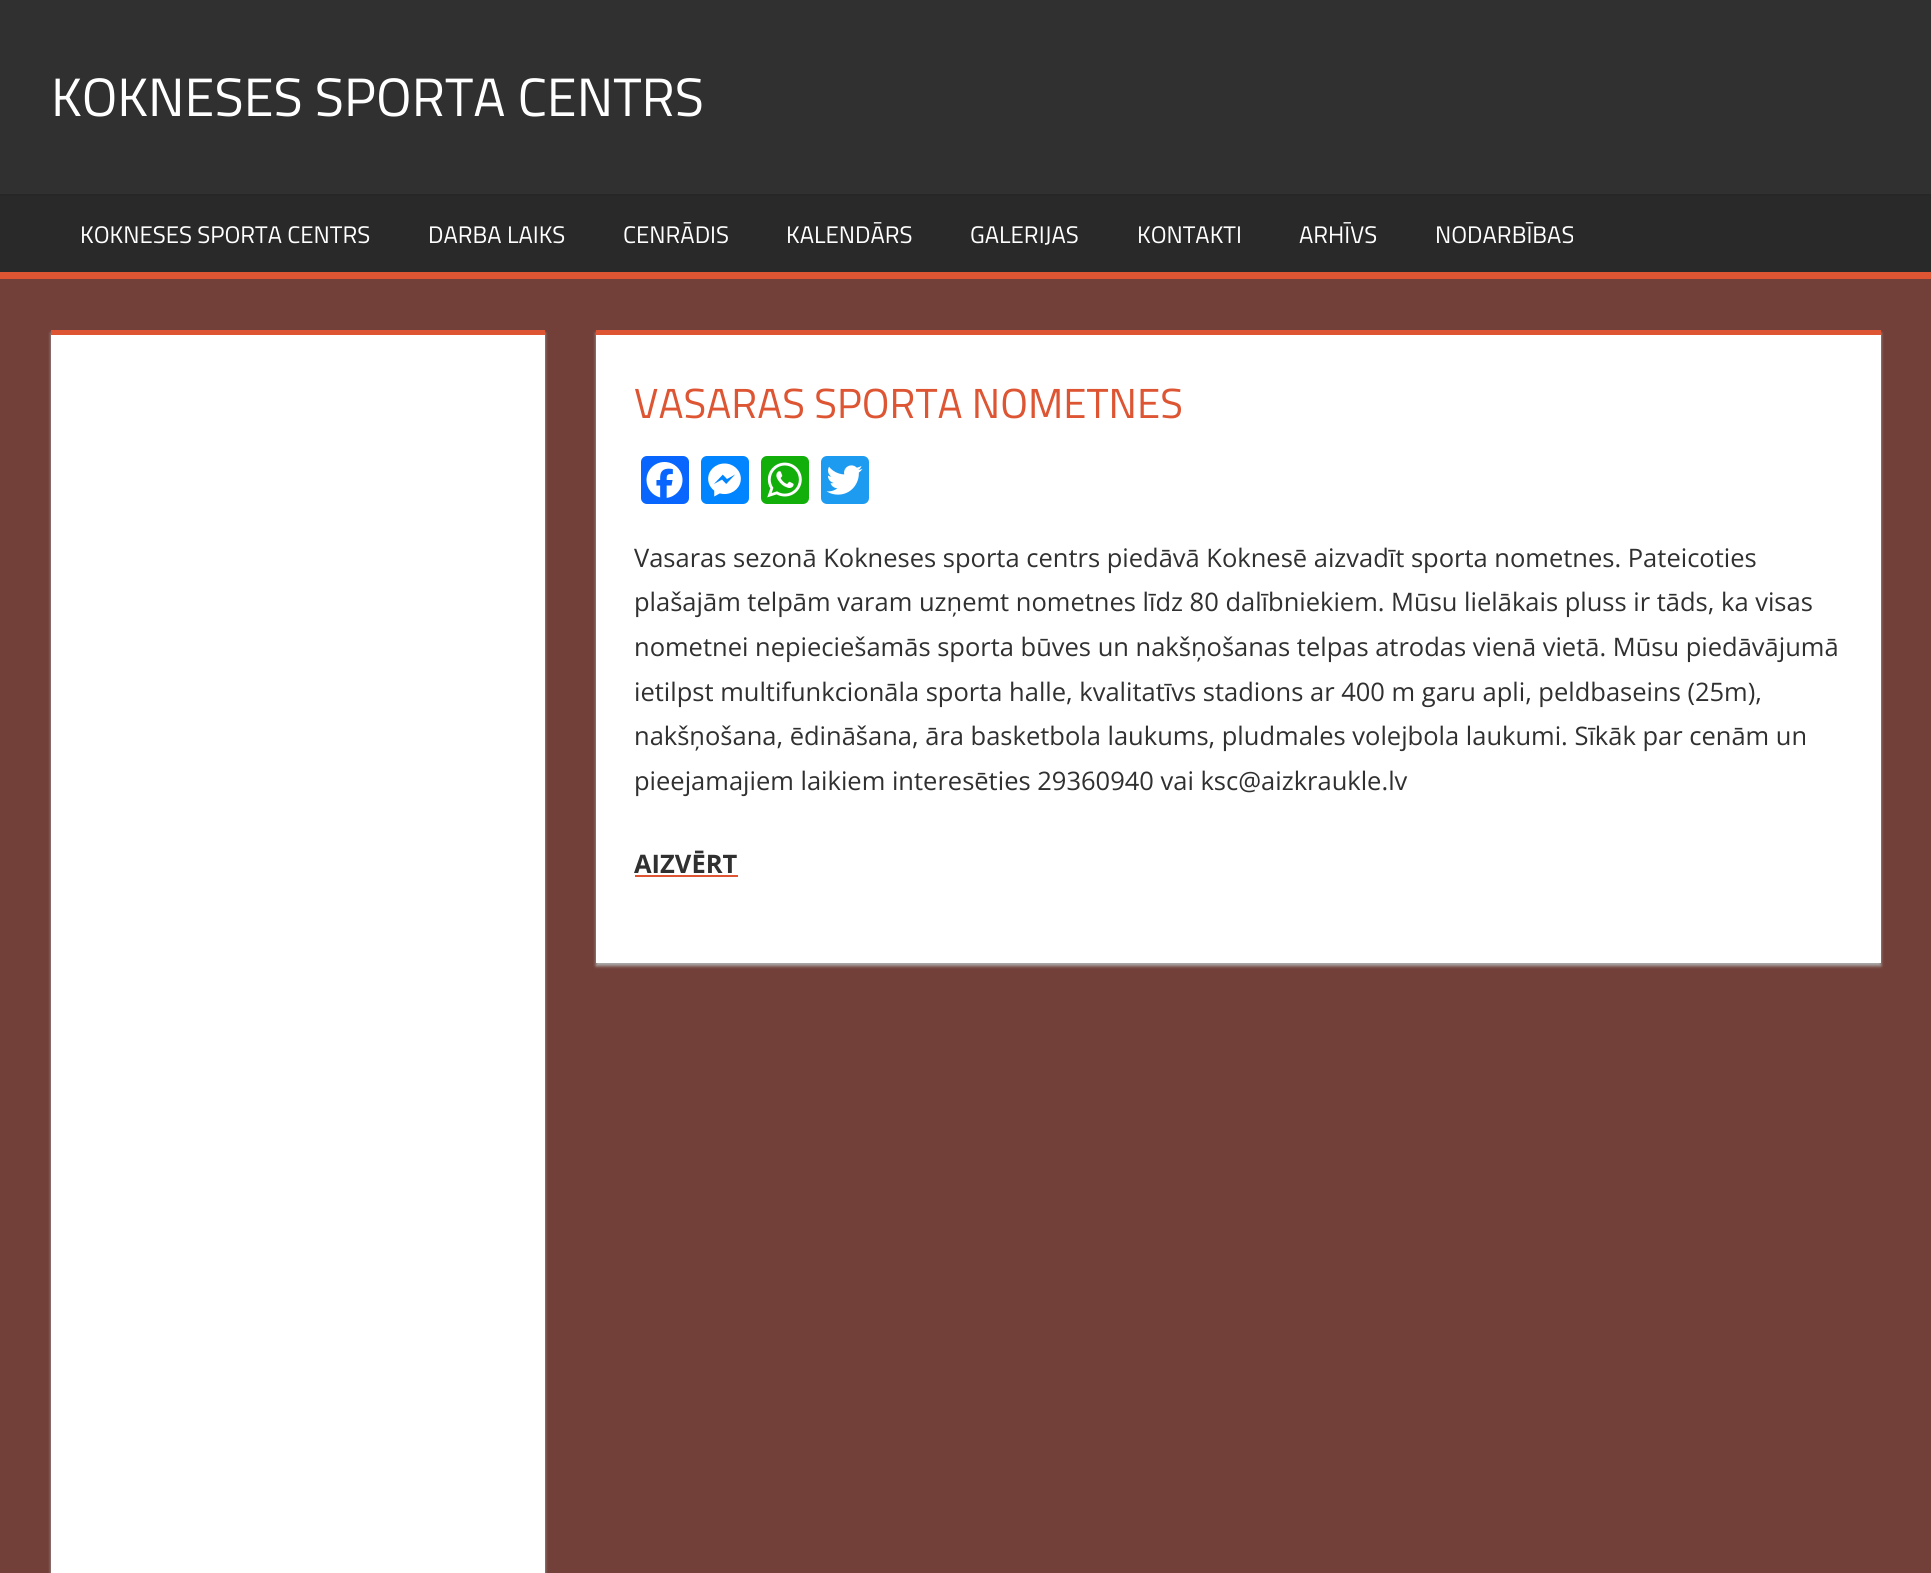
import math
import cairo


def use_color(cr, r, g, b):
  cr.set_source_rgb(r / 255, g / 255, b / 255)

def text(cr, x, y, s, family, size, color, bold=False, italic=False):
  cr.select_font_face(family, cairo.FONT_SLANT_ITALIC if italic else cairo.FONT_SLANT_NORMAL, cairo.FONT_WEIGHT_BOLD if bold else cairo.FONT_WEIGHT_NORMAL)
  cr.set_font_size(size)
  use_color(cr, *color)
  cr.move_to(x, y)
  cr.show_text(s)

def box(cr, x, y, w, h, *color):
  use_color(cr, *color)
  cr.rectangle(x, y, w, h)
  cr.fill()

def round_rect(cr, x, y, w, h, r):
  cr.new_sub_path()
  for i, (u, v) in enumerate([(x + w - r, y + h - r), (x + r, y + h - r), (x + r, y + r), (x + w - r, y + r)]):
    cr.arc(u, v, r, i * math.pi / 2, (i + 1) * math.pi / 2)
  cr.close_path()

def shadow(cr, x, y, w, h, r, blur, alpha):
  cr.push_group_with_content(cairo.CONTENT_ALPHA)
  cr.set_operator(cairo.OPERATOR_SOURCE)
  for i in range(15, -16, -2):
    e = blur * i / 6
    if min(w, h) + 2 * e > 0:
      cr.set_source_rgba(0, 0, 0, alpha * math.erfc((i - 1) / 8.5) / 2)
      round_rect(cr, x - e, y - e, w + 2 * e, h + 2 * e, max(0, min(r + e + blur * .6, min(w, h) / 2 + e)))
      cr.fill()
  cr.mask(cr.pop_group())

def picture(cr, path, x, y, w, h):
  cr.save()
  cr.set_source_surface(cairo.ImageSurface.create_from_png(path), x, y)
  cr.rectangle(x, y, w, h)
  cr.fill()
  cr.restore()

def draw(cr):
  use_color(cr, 114, 64, 57)
  cr.paint()
  box(cr, 0, 0, 1931, 194, 48, 48, 48)
  box(cr, 0, 196, 1931, 76, 41, 41, 41)
  box(cr, 0, 194, 1931, 2, 39, 39, 39)
  box(cr, 0, 272, 1931, 7, 221, 85, 51)
  use_color(cr, 170, 170, 170)
  shadow(cr, 51, 333, 494, 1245, 0, 1.5, 1)
  box(cr, 51, 335, 494, 1238, 255, 255, 255)
  box(cr, 51, 330, 494, 5, 221, 85, 51)
  use_color(cr, 170, 170, 170)
  shadow(cr, 596, 333, 1285, 633, 0, 1.5, 1)
  box(cr, 596, 335, 1285, 628, 255, 255, 255)
  box(cr, 596, 330, 1285, 5, 221, 85, 51)
  use_color(cr, 8, 102, 255)
  round_rect(cr, 641, 456, 48, 48, 6)
  cr.fill()
  picture(cr, "img_01.png", 646, 462, 37, 36)
  use_color(cr, 0, 132, 255)
  round_rect(cr, 701, 456, 48, 48, 6)
  cr.fill()
  picture(cr, "img_02.png", 708, 463, 33, 34)
  use_color(cr, 18, 175, 10)
  round_rect(cr, 761, 456, 48, 48, 6)
  cr.fill()
  picture(cr, "img_03.png", 767, 462, 35, 36)
  use_color(cr, 29, 155, 240)
  round_rect(cr, 821, 456, 48, 48, 6)
  cr.fill()
  picture(cr, "img_04.png", 826, 465, 37, 30)
  box(cr, 635, 875, 103, 2, 221, 85, 51)
  text(cr, 51, 116, "KOKNESES SPORTA CENTRS", "Titillium Web", 54, (255, 255, 255))
  text(cr, 80, 243, "KOKNESES SPORTA CENTRS", "Titillium Web", 24, (255, 255, 255))
  text(cr, 428, 243, "DARBA LAIKS", "Titillium Web", 24, (255, 255, 255))
  text(cr, 623, 243, "CENRĀDIS", "Titillium Web", 24, (255, 255, 255))
  text(cr, 786, 243, "KALENDĀRS", "Titillium Web", 24, (255, 255, 255))
  text(cr, 970, 243, "GALERIJAS", "Titillium Web", 24, (255, 255, 255))
  text(cr, 1137, 243, "KONTAKTI", "Titillium Web", 24, (255, 255, 255))
  text(cr, 1299, 243, "ARHĪVS", "Titillium Web", 24, (255, 255, 255))
  text(cr, 1435, 243, "NODARBĪBAS", "Titillium Web", 24, (255, 255, 255))
  text(cr, 634, 418, "VASARAS SPORTA NOMETNES", "Titillium Web", 42, (221, 85, 51))
  text(cr, 634, 567, "Vasaras sezonā Kokneses sporta centrs piedāvā Koknesē aizvadīt sporta nometnes. Pateicoties", "Open Sans", 25.5, (48, 48, 48))
  text(cr, 634, 611, "plašajām telpām varam uzņemt nometnes līdz 80 dalībniekiem. Mūsu lielākais pluss ir tāds, ka visas", "Open Sans", 25.5, (48, 48, 48))
  text(cr, 634, 656, "nometnei nepieciešamās sporta būves un nakšņošanas telpas atrodas vienā vietā. Mūsu piedāvājumā", "Open Sans", 25.5, (48, 48, 48))
  text(cr, 634, 701, "ietilpst multifunkcionāla sporta halle, kvalitatīvs stadions ar 400 m garu apli, peldbaseins (25m),", "Open Sans", 25.5, (48, 48, 48))
  text(cr, 634, 745, "nakšņošana, ēdināšana, āra basketbola laukums, pludmales volejbola laukumi. Sīkāk par cenām un", "Open Sans", 25.5, (48, 48, 48))
  text(cr, 634, 790, "pieejamajiem laikiem interesēties 29360940 vai ksc@aizkraukle.lv", "Open Sans", 25.5, (48, 48, 48))
  text(cr, 634, 873, "AIZVĒRT", "Open Sans", 25.5, (48, 48, 48), bold=True)


surface = cairo.ImageSurface(cairo.FORMAT_RGB24, 1931, 1573)
cr = cairo.Context(surface)
options = cairo.FontOptions()
options.set_hint_metrics(cairo.HINT_METRICS_OFF)
options.set_hint_style(cairo.HINT_STYLE_NONE)
cr.set_font_options(options)
cr.set_miter_limit(4)
draw(cr)
surface.write_to_png("out.png")
